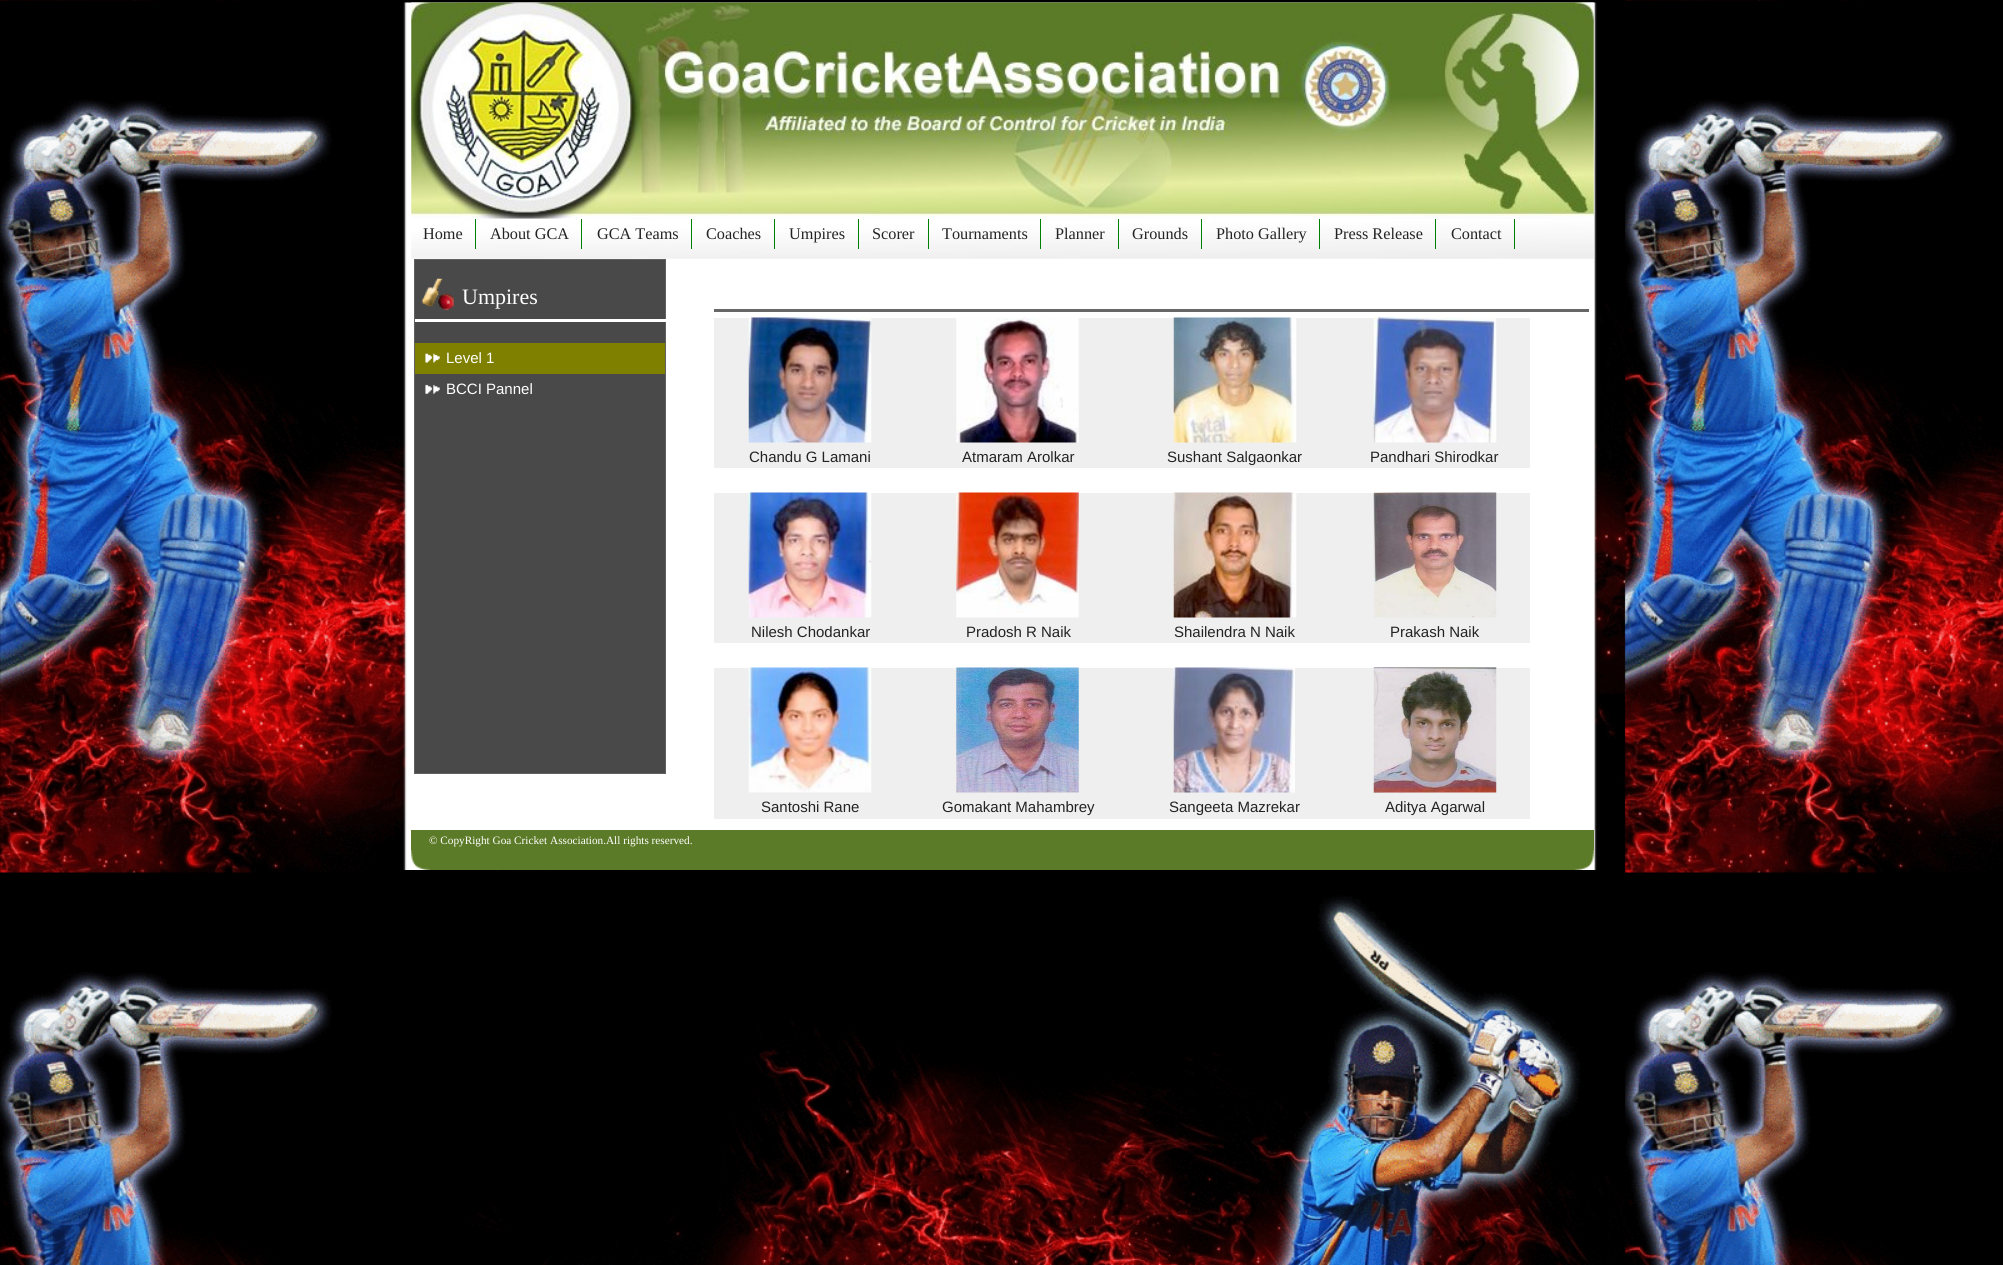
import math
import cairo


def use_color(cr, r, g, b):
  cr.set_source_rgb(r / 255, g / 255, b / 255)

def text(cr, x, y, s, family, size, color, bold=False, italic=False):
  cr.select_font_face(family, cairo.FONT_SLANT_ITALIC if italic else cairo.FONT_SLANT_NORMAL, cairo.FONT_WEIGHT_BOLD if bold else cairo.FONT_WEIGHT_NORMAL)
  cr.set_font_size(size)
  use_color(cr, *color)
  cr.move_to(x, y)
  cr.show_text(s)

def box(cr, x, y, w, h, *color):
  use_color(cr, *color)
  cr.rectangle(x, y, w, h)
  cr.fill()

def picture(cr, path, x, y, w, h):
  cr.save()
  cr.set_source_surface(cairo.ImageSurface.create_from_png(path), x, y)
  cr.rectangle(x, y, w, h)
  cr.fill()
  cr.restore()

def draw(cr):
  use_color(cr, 255, 255, 255)
  cr.paint()
  picture(cr, "img_01.png", 0, 0, 2003, 1265)
  picture(cr, "img_02.png", 397, 2, 1204, 868)
  box(cr, 1593, 3, 1, 867, 255, 255, 255)
  picture(cr, "img_03.png", 411, 2, 1183, 217)
  picture(cr, "img_04.png", 411, 218, 1183, 41)
  box(cr, 475, 219, 1, 30, 0, 128, 0)
  box(cr, 581, 219, 1, 30, 0, 128, 0)
  box(cr, 691, 219, 1, 30, 0, 128, 0)
  box(cr, 774, 219, 1, 30, 0, 128, 0)
  box(cr, 858, 219, 1, 30, 0, 128, 0)
  box(cr, 928, 219, 1, 30, 0, 128, 0)
  box(cr, 1040, 219, 1, 30, 0, 128, 0)
  box(cr, 1118, 219, 1, 30, 0, 128, 0)
  box(cr, 1201, 219, 1, 30, 0, 128, 0)
  box(cr, 1319, 219, 1, 30, 0, 128, 0)
  box(cr, 1435, 219, 1, 30, 0, 128, 0)
  box(cr, 1514, 219, 1, 30, 0, 128, 0)
  use_color(cr, 73, 73, 73)
  cr.rectangle(414.5, 259.5, 251, 514)
  cr.fill_preserve()
  use_color(cr, 96, 96, 96)
  cr.set_line_width(1)
  cr.stroke()
  picture(cr, "img_05.png", 421, 278, 33, 33)
  box(cr, 415, 319, 251, 3, 255, 255, 255)
  box(cr, 415, 343, 250, 31, 128, 128, 0)
  picture(cr, "img_06.png", 425, 353, 15, 10)
  picture(cr, "img_07.png", 425, 384, 15, 10)
  box(cr, 714, 309, 875, 3, 103, 103, 103)
  box(cr, 714, 318, 816, 150, 239, 239, 239)
  picture(cr, "img_08.png", 748, 317, 124, 126)
  picture(cr, "img_09.png", 956, 317, 123, 126)
  picture(cr, "img_10.png", 1173, 317, 124, 126)
  picture(cr, "img_11.png", 1373, 317, 124, 126)
  box(cr, 714, 493, 816, 150, 239, 239, 239)
  picture(cr, "img_12.png", 748, 492, 124, 126)
  picture(cr, "img_13.png", 956, 492, 123, 126)
  picture(cr, "img_14.png", 1173, 492, 124, 126)
  picture(cr, "img_15.png", 1373, 492, 124, 126)
  box(cr, 714, 668, 816, 151, 239, 239, 239)
  picture(cr, "img_16.png", 748, 667, 124, 126)
  picture(cr, "img_17.png", 956, 667, 123, 126)
  picture(cr, "img_18.png", 1173, 667, 122, 126)
  picture(cr, "img_19.png", 1373, 667, 124, 126)
  box(cr, 411, 830, 1183, 20, 92, 123, 40)
  picture(cr, "img_20.png", 411, 850, 1183, 20)
  text(cr, 423, 239, "Home", "Liberation Serif", 16.25, (35, 35, 35))
  text(cr, 490, 239, "About GCA", "Liberation Serif", 16.25, (35, 35, 35))
  text(cr, 597, 239, "GCA Teams", "Liberation Serif", 16.25, (35, 35, 35))
  text(cr, 706, 239, "Coaches", "Liberation Serif", 16.25, (35, 35, 35))
  text(cr, 789, 239, "Umpires", "Liberation Serif", 16.25, (35, 35, 35))
  text(cr, 872, 239, "Scorer", "Liberation Serif", 16.25, (35, 35, 35))
  text(cr, 942, 239, "Tournaments", "Liberation Serif", 16.25, (35, 35, 35))
  text(cr, 1055, 239, "Planner", "Liberation Serif", 16.25, (35, 35, 35))
  text(cr, 1132, 239, "Grounds", "Liberation Serif", 16.25, (35, 35, 35))
  text(cr, 1216, 239, "Photo Gallery", "Liberation Serif", 16.25, (35, 35, 35))
  text(cr, 1334, 239, "Press Release", "Liberation Serif", 16.25, (35, 35, 35))
  text(cr, 1451, 239, "Contact", "Liberation Serif", 16.25, (35, 35, 35))
  text(cr, 462, 304, "Umpires", "Liberation Serif", 22, (255, 255, 255))
  text(cr, 446, 363, "Level 1", "Liberation Sans", 15, (255, 255, 255))
  text(cr, 446, 394, "BCCI Pannel", "Liberation Sans", 15, (255, 255, 255))
  text(cr, 749, 462, "Chandu G Lamani", "Liberation Sans", 15, (35, 35, 35))
  text(cr, 962, 462, "Atmaram Arolkar", "Liberation Sans", 15, (35, 35, 35))
  text(cr, 1167, 462, "Sushant Salgaonkar", "Liberation Sans", 15, (35, 35, 35))
  text(cr, 1370, 462, "Pandhari Shirodkar", "Liberation Sans", 15, (35, 35, 35))
  text(cr, 751, 637, "Nilesh Chodankar", "Liberation Sans", 15, (35, 35, 35))
  text(cr, 966, 637, "Pradosh R Naik", "Liberation Sans", 15, (35, 35, 35))
  text(cr, 1174, 637, "Shailendra N Naik", "Liberation Sans", 15, (35, 35, 35))
  text(cr, 1390, 637, "Prakash Naik", "Liberation Sans", 15, (35, 35, 35))
  text(cr, 761, 812, "Santoshi Rane", "Liberation Sans", 15, (35, 35, 35))
  text(cr, 942, 812, "Gomakant Mahambrey", "Liberation Sans", 15, (35, 35, 35))
  text(cr, 1169, 812, "Sangeeta Mazrekar", "Liberation Sans", 15, (35, 35, 35))
  text(cr, 1385, 812, "Aditya Agarwal", "Liberation Sans", 15, (35, 35, 35))
  text(cr, 429, 844, "© CopyRight Goa Cricket Association.All rights reserved.", "Liberation Serif", 11.25, (255, 255, 255))


surface = cairo.ImageSurface(cairo.FORMAT_RGB24, 2003, 1265)
cr = cairo.Context(surface)
options = cairo.FontOptions()
options.set_hint_metrics(cairo.HINT_METRICS_OFF)
options.set_hint_style(cairo.HINT_STYLE_NONE)
cr.set_font_options(options)
cr.set_miter_limit(4)
draw(cr)
surface.write_to_png("out.png")
